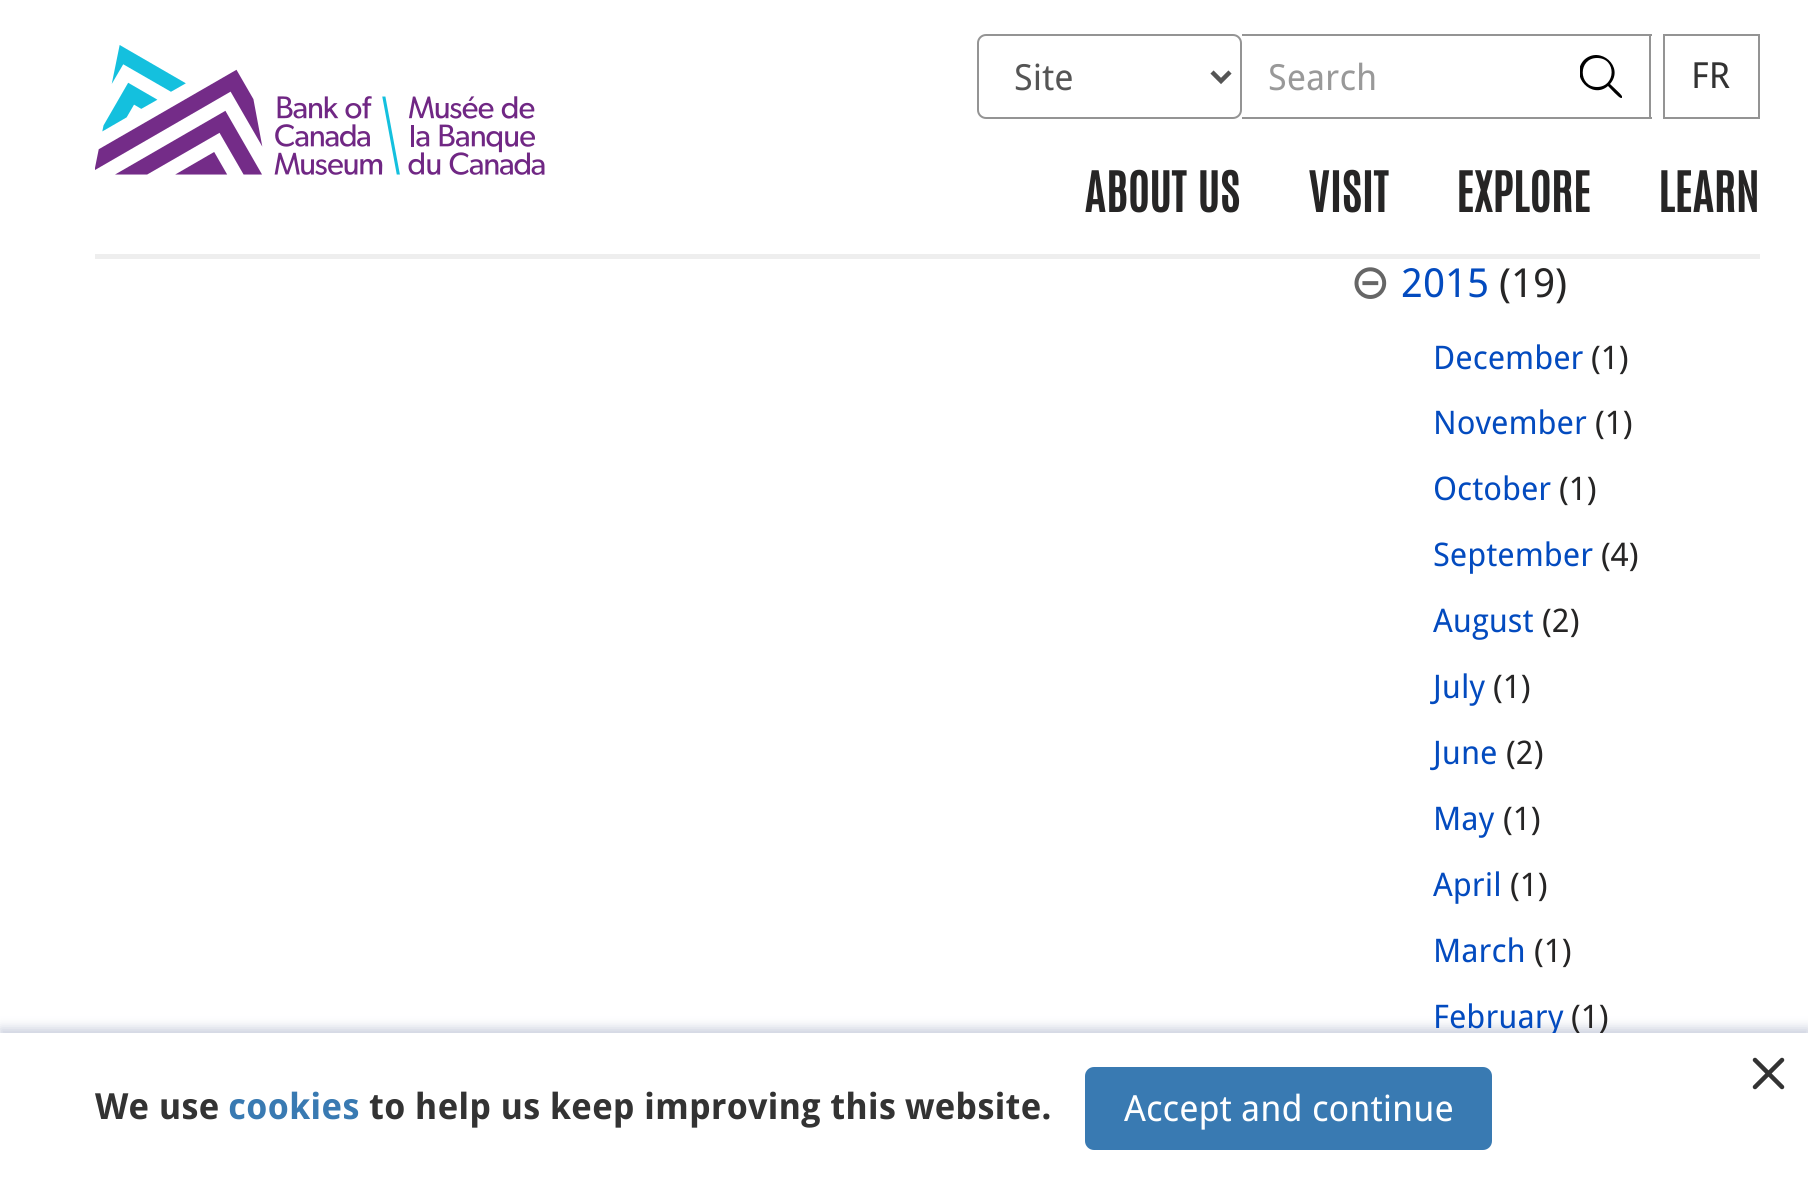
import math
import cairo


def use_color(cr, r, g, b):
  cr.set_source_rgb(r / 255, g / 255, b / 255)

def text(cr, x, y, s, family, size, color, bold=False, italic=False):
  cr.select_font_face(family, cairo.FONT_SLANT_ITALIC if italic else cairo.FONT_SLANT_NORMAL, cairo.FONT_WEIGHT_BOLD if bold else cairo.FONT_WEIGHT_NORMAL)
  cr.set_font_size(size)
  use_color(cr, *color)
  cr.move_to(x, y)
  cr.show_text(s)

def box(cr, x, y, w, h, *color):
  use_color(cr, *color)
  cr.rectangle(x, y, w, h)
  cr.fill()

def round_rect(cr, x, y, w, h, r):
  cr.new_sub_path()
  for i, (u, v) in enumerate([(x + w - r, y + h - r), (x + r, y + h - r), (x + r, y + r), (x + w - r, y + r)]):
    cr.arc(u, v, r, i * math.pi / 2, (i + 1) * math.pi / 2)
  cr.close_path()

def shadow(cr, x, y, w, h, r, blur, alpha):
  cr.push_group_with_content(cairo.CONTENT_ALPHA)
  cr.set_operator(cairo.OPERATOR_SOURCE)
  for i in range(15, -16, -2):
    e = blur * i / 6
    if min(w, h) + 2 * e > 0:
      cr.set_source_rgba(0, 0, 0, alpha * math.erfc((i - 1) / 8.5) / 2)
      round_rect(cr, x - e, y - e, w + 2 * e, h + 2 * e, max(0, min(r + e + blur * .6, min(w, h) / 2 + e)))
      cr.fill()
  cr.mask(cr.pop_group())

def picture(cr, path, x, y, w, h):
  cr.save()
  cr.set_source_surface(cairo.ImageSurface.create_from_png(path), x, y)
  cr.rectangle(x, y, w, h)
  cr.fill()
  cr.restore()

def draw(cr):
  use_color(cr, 255, 255, 255)
  cr.paint()
  box(cr, 95, 254, 1665, 5, 238, 238, 238)
  picture(cr, "img_01.png", 95, 45, 450, 130)
  round_rect(cr, 978, 35, 263, 83, 8)
  use_color(cr, 148, 148, 148)
  cr.stroke()
  cr.new_path()
  cr.move_to(1212, 72)
  cr.line_to(1221, 81)
  cr.line_to(1230, 72)
  use_color(cr, 85, 85, 85)
  cr.set_line_width(4.5)
  cr.stroke()
  box(cr, 1242, 34, 410, 2, 148, 148, 148)
  box(cr, 1242, 117, 311, 2, 148, 148, 148)
  box(cr, 1649, 34, 2, 85, 148, 148, 148)
  box(cr, 1553, 117, 99, 2, 148, 148, 148)
  cr.save()
  cr.rectangle(1580, 50, 42, 54)
  cr.clip()
  use_color(cr, 0, 0, 0)
  cr.new_path()
  cr.move_to(1621, 98)
  cr.curve_to(1619, 98, 1610, 88, 1608, 86)
  cr.curve_to(1592, 100, 1569, 76, 1584, 60)
  cr.curve_to(1600, 45, 1625, 67, 1610, 84)
  cr.curve_to(1616, 90, 1626, 98, 1621, 98)
  cr.close_path()
  cr.move_to(1597, 58)
  cr.curve_to(1578, 58, 1578, 87, 1597, 87)
  cr.curve_to(1616, 87, 1617, 58, 1597, 58)
  cr.close_path()
  cr.fill()
  cr.restore()
  cr.rectangle(1664, 35, 95, 83)
  cr.set_line_width(2)
  cr.stroke()
  picture(cr, "img_02.png", 1354, 267, 33, 32)
  use_color(cr, 79, 96, 144)
  shadow(cr, 0, 1028, 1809, 151, 0, 5.5, 0.3)
  text(cr, 1014, 90, "Site", "Droid Sans", 36, (85, 85, 85))
  text(cr, 1268, 90, "Search", "Droid Sans", 36, (153, 153, 153))
  text(cr, 1691, 88, "FR", "Droid Sans", 36, (51, 51, 51))
  text(cr, 1084, 212, "ABOUT US", "Antonio", 47, (38, 37, 37), bold=True)
  text(cr, 1308, 212, "VISIT", "Antonio", 47, (38, 37, 37), bold=True)
  text(cr, 1456, 212, "EXPLORE", "Antonio", 47, (38, 37, 37), bold=True)
  text(cr, 1658, 212, "LEARN", "Antonio", 47, (38, 37, 37), bold=True)
  text(cr, 1401, 297, "2015", "Droid Sans", 40, (3, 75, 191))
  text(cr, 1499, 297, "(19)", "Droid Sans", 40, (38, 37, 37))
  text(cr, 1433, 369, "December", "Droid Sans", 32.5, (3, 75, 191))
  text(cr, 1591, 369, "(1)", "Droid Sans", 32.5, (38, 37, 37))
  text(cr, 1433, 434, "November", "Droid Sans", 32.5, (3, 75, 191))
  text(cr, 1595, 434, "(1)", "Droid Sans", 32.5, (38, 37, 37))
  text(cr, 1433, 500, "October", "Droid Sans", 32.5, (3, 75, 191))
  text(cr, 1559, 500, "(1)", "Droid Sans", 32.5, (38, 37, 37))
  text(cr, 1433, 566, "September", "Droid Sans", 32.5, (3, 75, 191))
  text(cr, 1601, 566, "(4)", "Droid Sans", 32.5, (38, 37, 37))
  text(cr, 1433, 632, "August", "Droid Sans", 32.5, (3, 75, 191))
  text(cr, 1542, 632, "(2)", "Droid Sans", 32.5, (38, 37, 37))
  text(cr, 1433, 698, "July", "Droid Sans", 32.5, (3, 75, 191))
  text(cr, 1493, 698, "(1)", "Droid Sans", 32.5, (38, 37, 37))
  text(cr, 1433, 764, "June", "Droid Sans", 32.5, (3, 75, 191))
  text(cr, 1506, 764, "(2)", "Droid Sans", 32.5, (38, 37, 37))
  text(cr, 1433, 830, "May", "Droid Sans", 32.5, (3, 75, 191))
  text(cr, 1503, 830, "(1)", "Droid Sans", 32.5, (38, 37, 37))
  text(cr, 1433, 896, "April", "Droid Sans", 32.5, (3, 75, 191))
  text(cr, 1510, 896, "(1)", "Droid Sans", 32.5, (38, 37, 37))
  text(cr, 1433, 962, "March", "Droid Sans", 32.5, (3, 75, 191))
  text(cr, 1534, 962, "(1)", "Droid Sans", 32.5, (38, 37, 37))
  text(cr, 1433, 1028, "February", "Droid Sans", 32.5, (3, 75, 191))
  text(cr, 1571, 1028, "(1)", "Droid Sans", 32.5, (38, 37, 37))
  box(cr, 0, 1033, 1808, 149, 255, 255, 255)
  cr.new_path()
  cr.move_to(1782, 1060)
  cr.line_to(1755, 1087)
  cr.move_to(1755, 1060)
  cr.line_to(1782, 1087)
  use_color(cr, 51, 51, 51)
  cr.set_line_width(4.5)
  cr.set_line_cap(cairo.LINE_CAP_ROUND)
  cr.set_line_join(cairo.LINE_JOIN_ROUND)
  cr.stroke()
  text(cr, 95, 1119, "We use", "Droid Sans", 36, (51, 51, 51), bold=True)
  text(cr, 228, 1119, "cookies", "Droid Sans", 36, (57, 122, 178), bold=True)
  text(cr, 369, 1119, "to help us keep improving this website.", "Droid Sans", 36, (51, 51, 51), bold=True)
  use_color(cr, 57, 122, 178)
  round_rect(cr, 1085, 1067, 407, 83, 9)
  cr.fill()
  text(cr, 1124, 1121, "Accept and continue", "Droid Sans", 36, (255, 255, 255))


surface = cairo.ImageSurface(cairo.FORMAT_RGB24, 1808, 1182)
cr = cairo.Context(surface)
options = cairo.FontOptions()
options.set_hint_metrics(cairo.HINT_METRICS_OFF)
options.set_hint_style(cairo.HINT_STYLE_NONE)
cr.set_font_options(options)
cr.set_miter_limit(4)
draw(cr)
surface.write_to_png("out.png")
